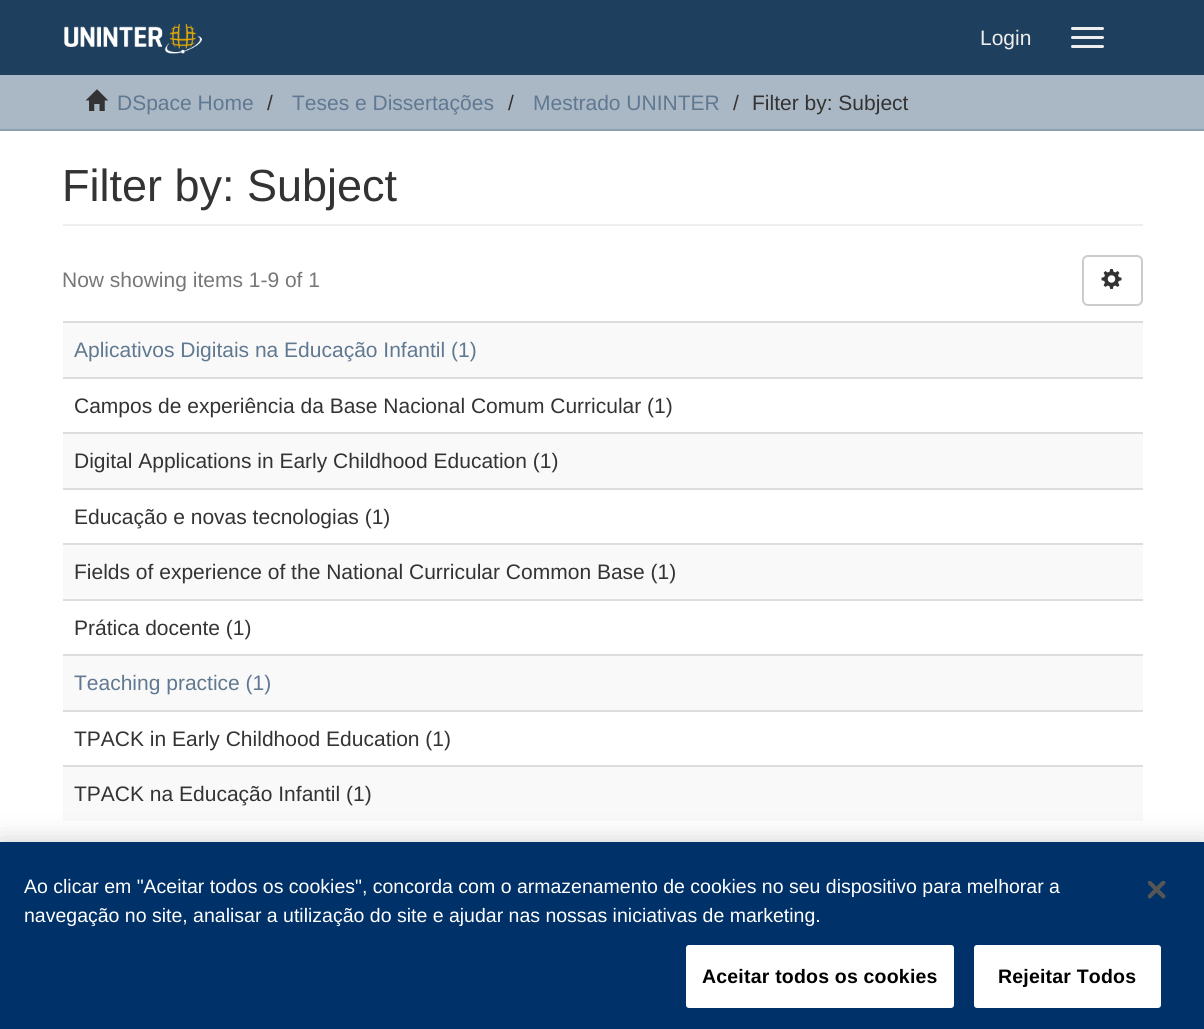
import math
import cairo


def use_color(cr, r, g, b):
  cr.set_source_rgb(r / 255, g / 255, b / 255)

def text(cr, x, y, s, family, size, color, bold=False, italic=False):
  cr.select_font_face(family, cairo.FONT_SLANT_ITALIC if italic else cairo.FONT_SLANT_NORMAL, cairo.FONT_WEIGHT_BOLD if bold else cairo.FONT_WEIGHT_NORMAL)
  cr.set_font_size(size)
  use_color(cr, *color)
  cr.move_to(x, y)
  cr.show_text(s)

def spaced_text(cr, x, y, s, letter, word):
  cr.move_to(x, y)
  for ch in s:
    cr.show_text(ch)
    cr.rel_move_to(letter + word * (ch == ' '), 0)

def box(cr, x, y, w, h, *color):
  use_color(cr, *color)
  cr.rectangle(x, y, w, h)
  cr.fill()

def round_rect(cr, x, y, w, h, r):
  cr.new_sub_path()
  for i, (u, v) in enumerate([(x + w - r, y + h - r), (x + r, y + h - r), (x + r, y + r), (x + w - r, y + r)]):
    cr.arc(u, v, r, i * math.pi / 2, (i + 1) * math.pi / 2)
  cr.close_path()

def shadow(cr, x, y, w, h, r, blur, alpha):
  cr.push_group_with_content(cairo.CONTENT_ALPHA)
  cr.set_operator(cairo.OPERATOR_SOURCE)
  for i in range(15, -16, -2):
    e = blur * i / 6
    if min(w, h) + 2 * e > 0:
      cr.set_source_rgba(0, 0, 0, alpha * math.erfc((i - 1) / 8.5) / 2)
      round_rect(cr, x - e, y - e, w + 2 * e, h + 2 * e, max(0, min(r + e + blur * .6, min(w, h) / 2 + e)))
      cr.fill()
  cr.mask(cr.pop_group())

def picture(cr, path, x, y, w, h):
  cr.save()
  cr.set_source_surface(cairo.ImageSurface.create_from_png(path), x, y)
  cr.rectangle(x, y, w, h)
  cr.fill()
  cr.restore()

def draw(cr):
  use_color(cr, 255, 255, 255)
  cr.paint()
  box(cr, 0, 0, 1204, 75, 31, 63, 94)
  picture(cr, "img_01.png", 64, 24, 138, 30)
  use_color(cr, 238, 238, 238)
  round_rect(cr, 1071, 27, 33, 3, 1.5)
  cr.fill()
  round_rect(cr, 1071, 36, 33, 3, 1.5)
  cr.fill()
  round_rect(cr, 1071, 45, 33, 3, 1.5)
  cr.fill()
  box(cr, 0, 75, 1204, 54, 170, 184, 198)
  box(cr, 0, 129, 1204, 2, 139, 158, 178)
  picture(cr, "img_02.png", 85, 89, 24, 22)
  box(cr, 63, 224, 1080, 2, 238, 238, 238)
  round_rect(cr, 1083, 256, 59, 49, 5)
  use_color(cr, 204, 204, 204)
  cr.stroke()
  picture(cr, "img_03.png", 1101, 268, 21, 21)
  box(cr, 63, 323, 1080, 54, 249, 249, 249)
  box(cr, 63, 321, 1080, 2, 221, 221, 221)
  box(cr, 63, 377, 1080, 2, 221, 221, 221)
  box(cr, 63, 434, 1080, 54, 249, 249, 249)
  box(cr, 63, 432, 1080, 2, 221, 221, 221)
  box(cr, 63, 488, 1080, 2, 221, 221, 221)
  box(cr, 63, 545, 1080, 54, 249, 249, 249)
  box(cr, 63, 543, 1080, 2, 221, 221, 221)
  box(cr, 63, 599, 1080, 2, 221, 221, 221)
  box(cr, 63, 656, 1080, 54, 249, 249, 249)
  box(cr, 63, 654, 1080, 2, 221, 221, 221)
  box(cr, 63, 710, 1080, 2, 221, 221, 221)
  box(cr, 63, 767, 1080, 54, 249, 249, 249)
  box(cr, 63, 765, 1080, 2, 221, 221, 221)
  use_color(cr, 0, 0, 0)
  shadow(cr, 0, 842, 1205, 187, 0, 13.5, 0.2)
  box(cr, 0, 842, 1204, 187, 0, 49, 104)
  use_color(cr, 255, 255, 255)
  round_rect(cr, 687, 946, 266, 61, 2)
  cr.fill_preserve()
  cr.stroke()
  round_rect(cr, 975, 946, 185, 61, 2)
  cr.fill_preserve()
  cr.stroke()
  picture(cr, "img_04.png", 1148, 881, 18, 18)
  text(cr, 980, 45, "Login", "Liberation Sans", 21, (238, 238, 238))
  text(cr, 117, 110, "DSpace Home", "Liberation Sans", 21, (96, 120, 144))
  text(cr, 267, 110, "/", "Liberation Sans", 21, (51, 51, 51))
  text(cr, 292, 110, "Teses e Dissertações", "Liberation Sans", 21, (96, 120, 144))
  text(cr, 508, 110, "/", "Liberation Sans", 21, (51, 51, 51))
  text(cr, 533, 110, "Mestrado UNINTER", "Liberation Sans", 21, (96, 120, 144))
  text(cr, 733, 110, "/", "Liberation Sans", 21, (51, 51, 51))
  text(cr, 752, 110, "Filter by: Subject", "Liberation Sans", 21, (51, 51, 51))
  text(cr, 62, 201, "Filter by: Subject", "Liberation Sans", 45, (51, 51, 51))
  text(cr, 62, 287, "Now showing items 1-9 of 1", "Liberation Sans", 21, (119, 119, 119))
  text(cr, 74, 357, "Aplicativos Digitais na Educação Infantil (1)", "Liberation Sans", 21, (96, 120, 144))
  text(cr, 74, 413, "Campos de experiência da Base Nacional Comum Curricular (1)", "Liberation Sans", 21, (51, 51, 51))
  text(cr, 74, 468, "Digital Applications in Early Childhood Education (1)", "Liberation Sans", 21, (51, 51, 51))
  text(cr, 74, 524, "Educação e novas tecnologias (1)", "Liberation Sans", 21, (51, 51, 51))
  text(cr, 74, 579, "Fields of experience of the National Curricular Common Base (1)", "Liberation Sans", 21, (51, 51, 51))
  text(cr, 74, 635, "Prática docente (1)", "Liberation Sans", 21, (51, 51, 51))
  text(cr, 74, 690, "Teaching practice (1)", "Liberation Sans", 21, (96, 120, 144))
  text(cr, 74, 746, "TPACK in Early Childhood Education (1)", "Liberation Sans", 21, (51, 51, 51))
  text(cr, 74, 801, "TPACK na Educação Infantil (1)", "Liberation Sans", 21, (51, 51, 51))
  text(cr, 24, 893, "Ao clicar em \"Aceitar todos os cookies\", concorda com o armazenamento de cookies no seu dispositivo para melhorar a", "Liberation Sans", 19.5, (255, 255, 255))
  text(cr, 24, 922, "navegação no site, analisar a utilização do site e ajudar nas nossas iniciativas de marketing.", "Liberation Sans", 19.5, (255, 255, 255))
  cr.select_font_face("Liberation Sans", cairo.FONT_SLANT_NORMAL, cairo.FONT_WEIGHT_BOLD)
  use_color(cr, 0, 0, 0)
  spaced_text(cr, 702, 983, "Aceitar todos os cookies", 0.2, 0)
  spaced_text(cr, 998, 983, "Rejeitar Todos", 0.2, 0)


surface = cairo.ImageSurface(cairo.FORMAT_RGB24, 1204, 1029)
cr = cairo.Context(surface)
options = cairo.FontOptions()
options.set_hint_metrics(cairo.HINT_METRICS_OFF)
options.set_hint_style(cairo.HINT_STYLE_NONE)
cr.set_font_options(options)
cr.set_miter_limit(4)
draw(cr)
surface.write_to_png("out.png")
